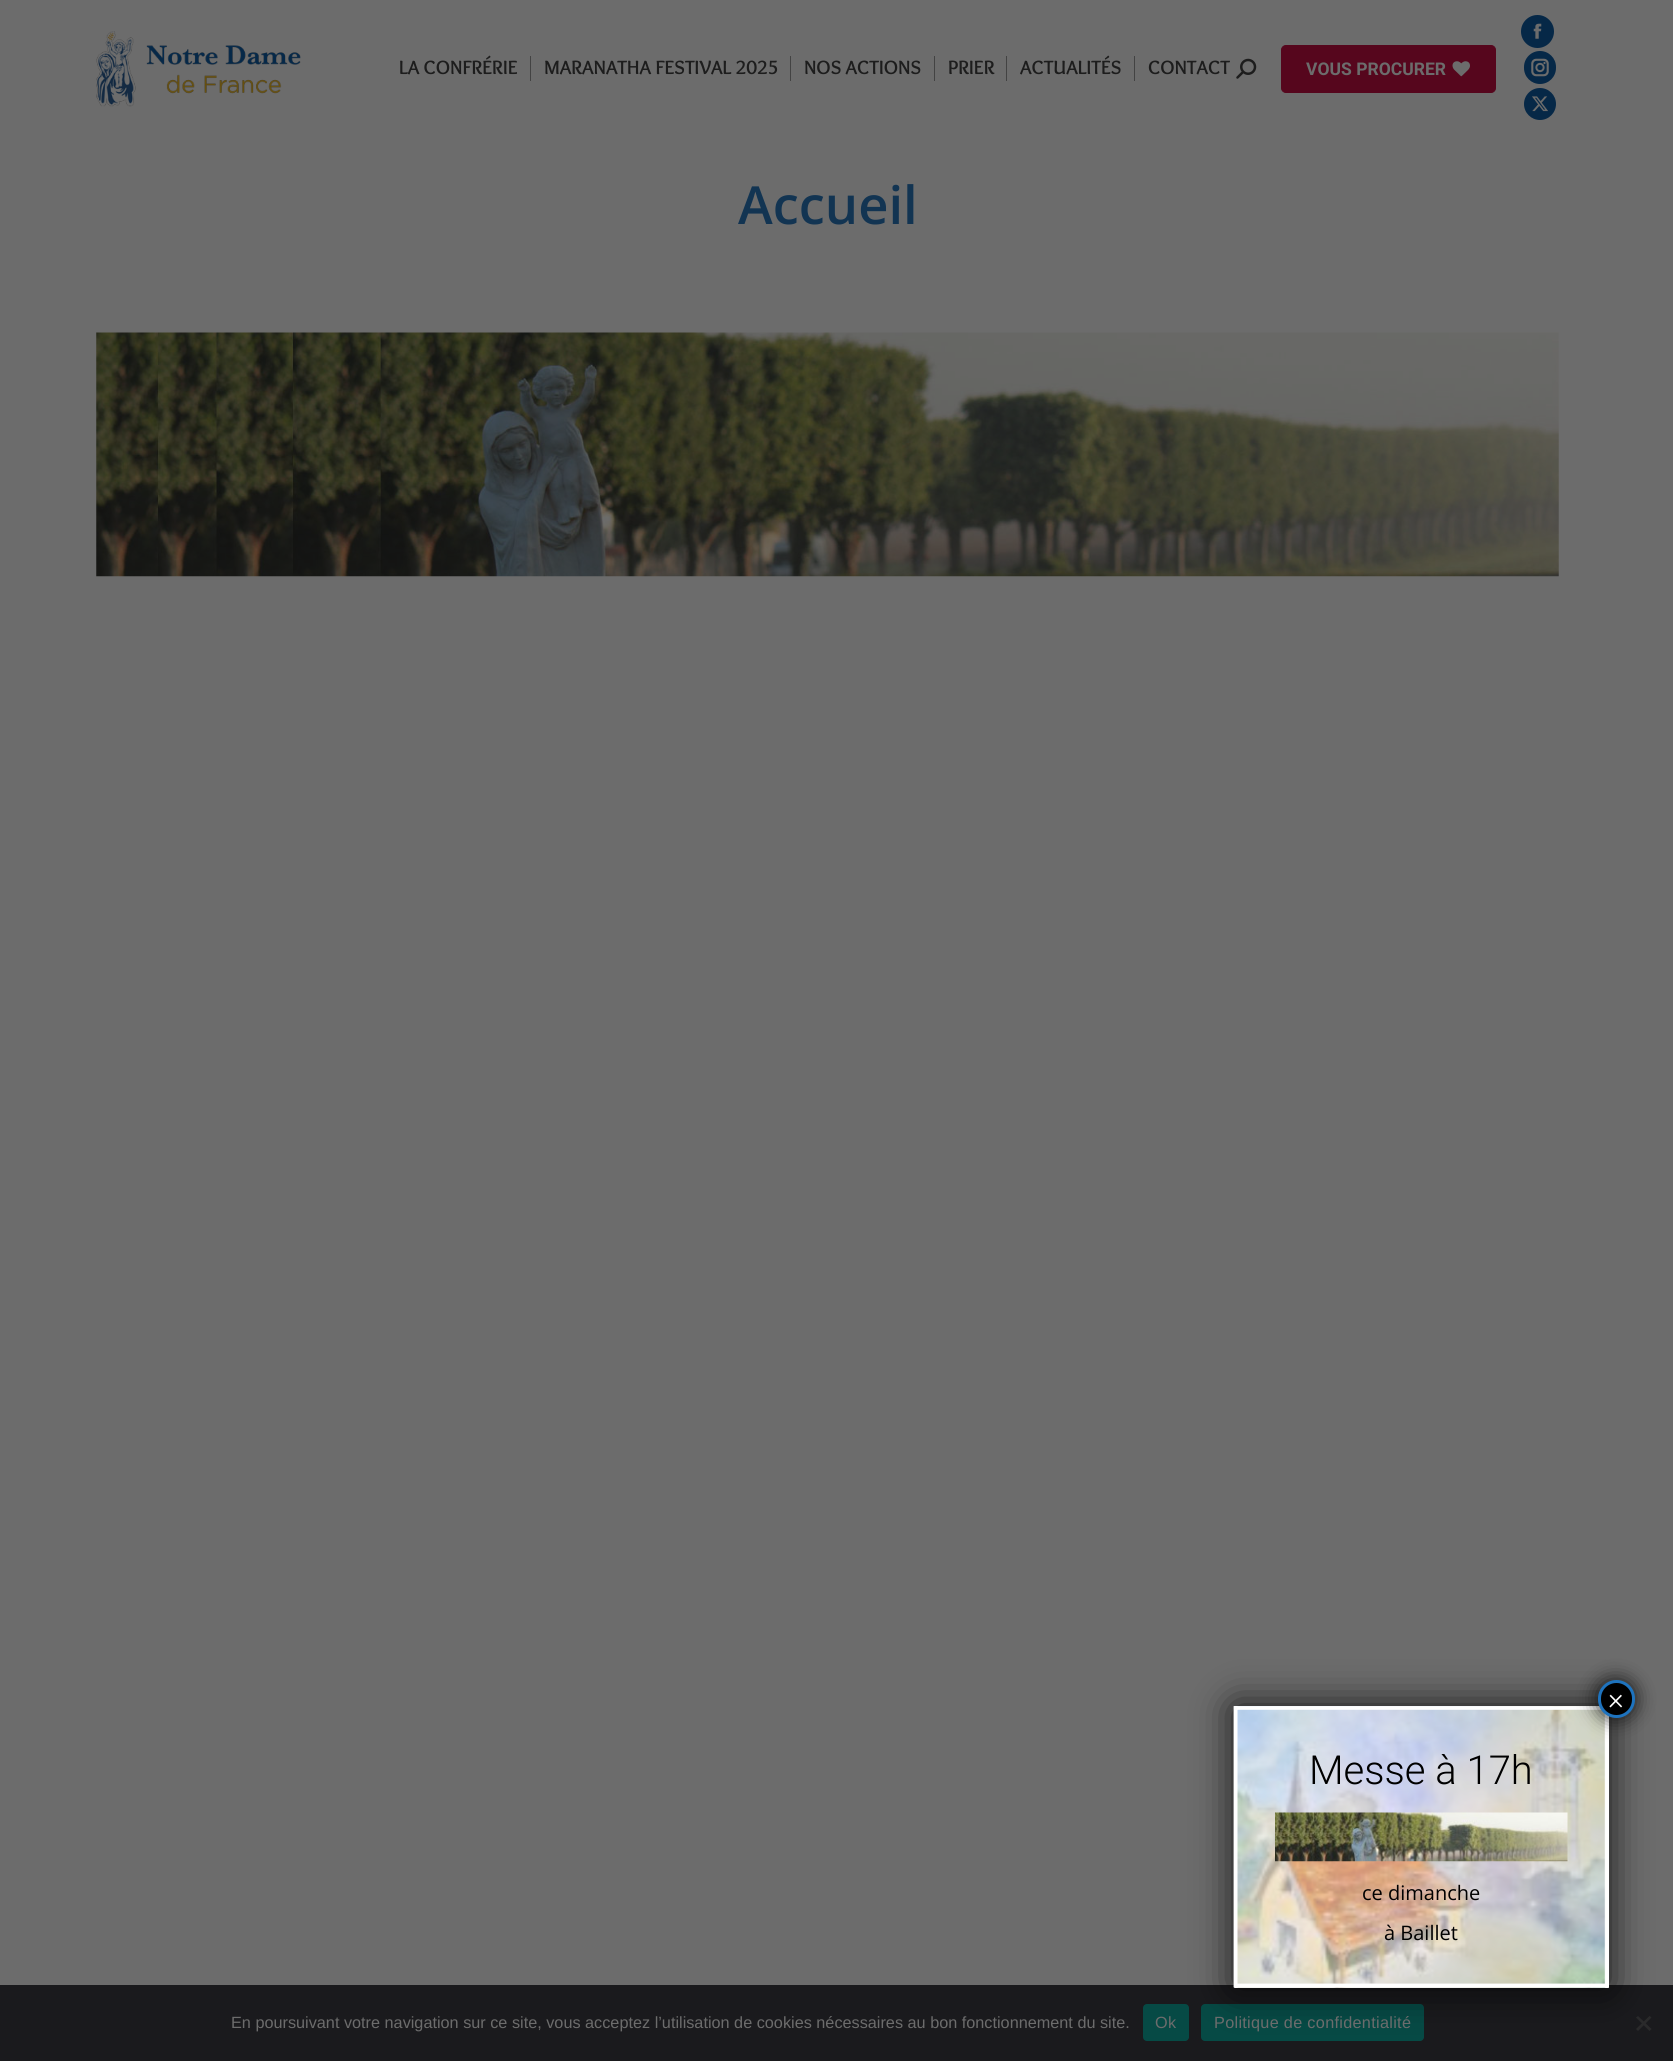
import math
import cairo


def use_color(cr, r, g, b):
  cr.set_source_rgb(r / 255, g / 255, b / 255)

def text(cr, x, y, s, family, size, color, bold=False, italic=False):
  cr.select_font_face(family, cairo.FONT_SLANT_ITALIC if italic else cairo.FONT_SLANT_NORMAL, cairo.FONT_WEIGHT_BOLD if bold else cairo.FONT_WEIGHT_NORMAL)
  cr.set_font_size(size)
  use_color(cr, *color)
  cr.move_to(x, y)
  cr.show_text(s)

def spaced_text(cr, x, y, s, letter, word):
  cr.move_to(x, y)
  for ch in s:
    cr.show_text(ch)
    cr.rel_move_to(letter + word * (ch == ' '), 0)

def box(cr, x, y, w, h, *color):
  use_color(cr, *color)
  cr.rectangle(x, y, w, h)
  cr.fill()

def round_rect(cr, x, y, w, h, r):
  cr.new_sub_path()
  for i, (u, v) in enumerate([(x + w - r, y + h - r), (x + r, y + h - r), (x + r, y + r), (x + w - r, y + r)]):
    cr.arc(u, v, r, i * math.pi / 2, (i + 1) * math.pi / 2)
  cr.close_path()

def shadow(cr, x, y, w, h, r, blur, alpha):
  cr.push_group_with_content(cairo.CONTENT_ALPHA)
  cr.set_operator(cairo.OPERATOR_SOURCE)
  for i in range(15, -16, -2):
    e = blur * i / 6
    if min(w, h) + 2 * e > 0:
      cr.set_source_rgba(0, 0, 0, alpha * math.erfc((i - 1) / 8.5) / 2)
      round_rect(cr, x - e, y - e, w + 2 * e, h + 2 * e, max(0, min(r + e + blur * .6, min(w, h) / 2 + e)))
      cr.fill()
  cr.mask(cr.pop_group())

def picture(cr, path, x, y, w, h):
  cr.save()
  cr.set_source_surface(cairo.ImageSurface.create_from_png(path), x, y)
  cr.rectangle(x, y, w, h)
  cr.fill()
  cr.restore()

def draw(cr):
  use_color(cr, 108, 108, 108)
  cr.paint()
  picture(cr, "img_01.png", 96, 31, 205, 76)
  box(cr, 530, 56, 1, 25, 67, 67, 67)
  box(cr, 790, 56, 1, 25, 67, 67, 67)
  box(cr, 934, 56, 1, 25, 67, 67, 67)
  box(cr, 1006, 56, 1, 25, 67, 67, 67)
  box(cr, 1134, 56, 1, 25, 67, 67, 67)
  picture(cr, "img_02.png", 1236, 58, 21, 21)
  use_color(cr, 86, 6, 29)
  round_rect(cr, 1281.5, 45.5, 214, 47, 4.5)
  cr.fill_preserve()
  cr.set_line_width(1)
  cr.stroke()
  picture(cr, "img_03.png", 1452, 61, 18, 16)
  use_color(cr, 6, 40, 71)
  cr.arc(1537.5, 31.5, 16.5, 0, 2 * math.pi)
  cr.fill()
  picture(cr, "img_04.png", 1533, 23, 9, 16)
  round_rect(cr, 1524, 51, 32, 33, 16)
  cr.fill()
  picture(cr, "img_05.png", 1531, 58, 18, 19)
  cr.arc(1540, 104, 16, 0, 2 * math.pi)
  cr.fill()
  picture(cr, "img_06.png", 1532, 96, 16, 16)
  picture(cr, "img_07.png", 96, 332, 1463, 245)
  box(cr, 0, 1985, 1673, 76, 26, 26, 29)
  use_color(cr, 6, 74, 69)
  round_rect(cr, 1143, 2004, 46, 37, 4)
  cr.fill()
  round_rect(cr, 1201, 2004, 223, 37, 4)
  cr.fill()
  use_color(cr, 42, 42, 43)
  cr.new_path()
  cr.move_to(1649.5, 2016)
  cr.line_to(1651.5, 2017.5)
  cr.line_to(1638, 2031)
  cr.line_to(1636, 2029)
  cr.close_path()
  cr.fill()
  cr.new_path()
  cr.move_to(1636, 2017.5)
  cr.line_to(1638, 2016)
  cr.line_to(1651.5, 2029)
  cr.line_to(1649.5, 2031)
  cr.close_path()
  cr.fill()
  use_color(cr, 2, 2, 2)
  shadow(cr, 1234, 1706, 375, 282, 1, 19, 0.85)
  use_color(cr, 255, 255, 255)
  round_rect(cr, 1234, 1706, 375, 282, 1)
  cr.fill()
  picture(cr, "img_08.png", 1236, 1706, 370, 282)
  cr.new_path()
  cr.move_to(1235.5, 1708)
  cr.line_to(1607, 1708)
  cr.line_to(1607, 1985.5)
  cr.line_to(1235.5, 1985.5)
  cr.close_path()
  cr.set_line_width(3.8)
  cr.stroke()
  cr.set_source_rgba(1, 1, 1, 0.47)
  cr.rectangle(1238, 1710, 367, 274)
  cr.fill()
  use_color(cr, 2, 2, 2)
  shadow(cr, 1596, 1679, 40, 40, 20, 9.5, 0.75)
  use_color(cr, 0, 0, 0)
  round_rect(cr, 1599.5, 1681.5, 34, 35, 17)
  cr.fill_preserve()
  use_color(cr, 30, 115, 190)
  cr.set_line_width(3)
  cr.stroke()
  picture(cr, "img_09.png", 1275, 1812, 293, 50)
  text(cr, 399, 74, "LA CONFRÉRIE", "Overlock", 20, (29, 29, 29), bold=True)
  text(cr, 544, 74, "MARANATHA FESTIVAL 2025", "Overlock", 20, (29, 29, 29), bold=True)
  text(cr, 804, 74, "NOS ACTIONS", "Overlock", 20, (29, 29, 29), bold=True)
  text(cr, 948, 74, "PRIER", "Overlock", 20, (29, 29, 29), bold=True)
  text(cr, 1020, 74, "ACTUALITÉS", "Overlock", 20, (29, 29, 29), bold=True)
  text(cr, 1148, 74, "CONTACT", "Overlock", 20, (29, 29, 29), bold=True)
  text(cr, 1306, 75, "VOUS PROCURER", "Roboto", 17.5, (108, 108, 108), bold=True)
  text(cr, 738, 224, "Accueil", "Open Sans SemiBold", 52.5, (18, 52, 82))
  text(cr, 1608, 1709, "×", "Roboto Light", 30, (255, 255, 255))
  text(cr, 1309, 1784, "Messe à 17h", "Roboto Light", 40, (0, 0, 0))
  text(cr, 1362, 1900, "ce dimanche", "Open Sans", 20, (0, 0, 0))
  text(cr, 1384, 1940, "à Baillet", "Open Sans", 20, (0, 0, 0))
  text(cr, 231, 2028, "En poursuivant votre navigation sur ce site, vous acceptez l’utilisation de cookies nécessaires au bon fonctionnement du site.", "Liberation Sans", 16.25, (108, 108, 108))
  spaced_text(cr, 1155, 2028, "Ok", 0.3, 0)
  spaced_text(cr, 1214, 2028, "Politique de confidentialité", 0.3, 0)


surface = cairo.ImageSurface(cairo.FORMAT_RGB24, 1673, 2061)
cr = cairo.Context(surface)
options = cairo.FontOptions()
options.set_hint_metrics(cairo.HINT_METRICS_OFF)
options.set_hint_style(cairo.HINT_STYLE_NONE)
cr.set_font_options(options)
cr.set_miter_limit(4)
draw(cr)
surface.write_to_png("out.png")
